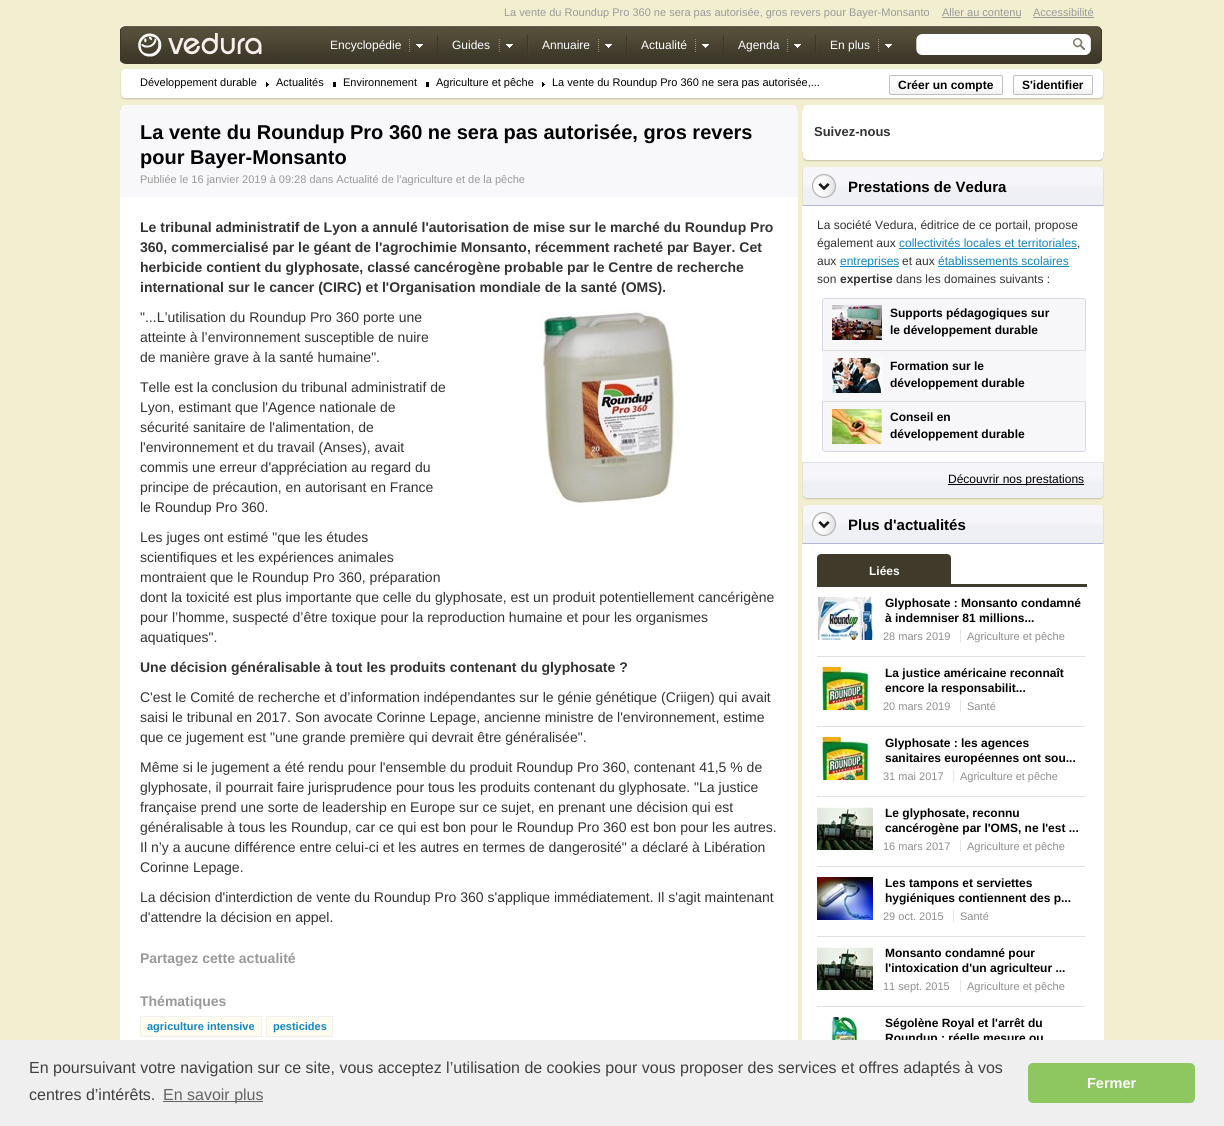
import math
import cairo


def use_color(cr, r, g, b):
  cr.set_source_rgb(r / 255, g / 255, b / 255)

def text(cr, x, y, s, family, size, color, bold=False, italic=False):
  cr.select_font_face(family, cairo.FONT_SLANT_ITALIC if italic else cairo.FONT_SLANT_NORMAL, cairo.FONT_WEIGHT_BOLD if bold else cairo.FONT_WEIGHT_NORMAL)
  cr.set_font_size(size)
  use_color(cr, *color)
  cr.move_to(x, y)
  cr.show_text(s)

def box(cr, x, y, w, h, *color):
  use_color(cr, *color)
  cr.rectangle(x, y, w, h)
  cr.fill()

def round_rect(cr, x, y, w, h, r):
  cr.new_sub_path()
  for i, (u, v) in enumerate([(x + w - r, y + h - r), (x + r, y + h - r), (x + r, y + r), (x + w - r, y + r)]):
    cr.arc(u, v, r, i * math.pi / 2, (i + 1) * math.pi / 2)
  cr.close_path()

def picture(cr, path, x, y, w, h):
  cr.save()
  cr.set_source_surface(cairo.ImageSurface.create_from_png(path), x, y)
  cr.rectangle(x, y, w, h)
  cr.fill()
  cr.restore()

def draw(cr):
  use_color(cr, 242, 239, 208)
  cr.paint()
  box(cr, 942, 17, 79, 1, 153, 153, 153)
  box(cr, 1033, 17, 61, 1, 153, 153, 153)
  picture(cr, "img_01.png", 120, 26, 982, 38)
  picture(cr, "img_02.png", 138, 33, 124, 24)
  picture(cr, "img_03.png", 409, 39, 14, 13)
  cr.set_source_rgba(0.235, 0.212, 0.153, 0.94)
  cr.rectangle(437, 35, 1, 20)
  cr.fill()
  picture(cr, "img_04.png", 498, 39, 15, 13)
  picture(cr, "img_05.png", 527, 35, 2, 19)
  picture(cr, "img_06.png", 598, 39, 14, 13)
  picture(cr, "img_07.png", 626, 35, 2, 19)
  picture(cr, "img_08.png", 695, 39, 14, 13)
  picture(cr, "img_09.png", 723, 35, 2, 19)
  picture(cr, "img_10.png", 787, 39, 14, 13)
  picture(cr, "img_11.png", 815, 35, 2, 19)
  picture(cr, "img_12.png", 878, 39, 14, 13)
  picture(cr, "img_13.png", 916, 34, 175, 21)
  picture(cr, "img_14.png", 1073, 38, 12, 12)
  picture(cr, "img_15.png", 120, 69, 984, 5)
  picture(cr, "img_16.png", 120, 74, 984, 26)
  picture(cr, "img_17.png", 266, 82, 4, 5)
  box(cr, 333, 82, 3, 5, 0, 0, 0)
  box(cr, 426, 82, 3, 5, 0, 0, 0)
  picture(cr, "img_17.png", 542, 82, 4, 5)
  picture(cr, "img_18.png", 889, 87, 114, 8)
  round_rect(cr, 889.5, 75.5, 113, 19, 1.5)
  use_color(cr, 192, 192, 192)
  cr.set_line_width(1)
  cr.stroke()
  picture(cr, "img_19.png", 1013, 87, 80, 8)
  round_rect(cr, 1013.5, 75.5, 79, 19, 1.5)
  cr.stroke()
  picture(cr, "img_20.png", 120, 105, 678, 5)
  box(cr, 120, 110, 678, 87, 248, 248, 251)
  box(cr, 120, 197, 678, 843, 255, 255, 255)
  picture(cr, "img_21.png", 538, 308, 137, 198)
  box(cr, 140, 1016, 122, 21, 254, 251, 239)
  cr.new_path()
  cr.move_to(140, 1016.5)
  cr.line_to(262, 1016.5)
  use_color(cr, 232, 232, 232)
  cr.set_dash([1, 1])
  cr.stroke()
  cr.new_path()
  cr.move_to(261.5, 1016)
  cr.line_to(261.5, 1037)
  cr.stroke()
  cr.new_path()
  cr.move_to(140, 1036.5)
  cr.line_to(262, 1036.5)
  cr.stroke()
  cr.new_path()
  cr.move_to(140.5, 1016)
  cr.line_to(140.5, 1037)
  cr.stroke()
  box(cr, 266, 1016, 67, 21, 254, 251, 239)
  cr.new_path()
  cr.move_to(266, 1016.5)
  cr.line_to(333, 1016.5)
  use_color(cr, 232, 232, 232)
  cr.stroke()
  cr.new_path()
  cr.move_to(332.5, 1016)
  cr.line_to(332.5, 1037)
  cr.stroke()
  cr.new_path()
  cr.move_to(266, 1036.5)
  cr.line_to(333, 1036.5)
  cr.stroke()
  cr.new_path()
  cr.move_to(266.5, 1016)
  cr.line_to(266.5, 1037)
  cr.stroke()
  picture(cr, "img_22.png", 802, 105, 302, 5)
  box(cr, 802, 110, 302, 42, 255, 255, 255)
  picture(cr, "img_23.png", 802, 152, 302, 10)
  picture(cr, "img_24.png", 802, 167, 302, 39)
  picture(cr, "img_25.png", 812, 174, 24, 24)
  box(cr, 802, 206, 302, 256, 255, 255, 255)
  box(cr, 899, 248, 178, 1, 18, 136, 193)
  box(cr, 840, 266, 59, 1, 18, 136, 193)
  box(cr, 938, 266, 131, 1, 18, 136, 193)
  picture(cr, "img_26.png", 822, 298, 264, 52)
  box(cr, 822, 350, 264, 1, 224, 224, 224)
  picture(cr, "img_27.png", 832, 305, 50, 35)
  box(cr, 822, 351, 264, 50, 247, 247, 250)
  box(cr, 822, 401, 264, 1, 224, 224, 224)
  picture(cr, "img_28.png", 832, 358, 50, 35)
  picture(cr, "img_29.png", 822, 402, 264, 50)
  picture(cr, "img_30.png", 832, 409, 50, 35)
  picture(cr, "img_31.png", 802, 462, 302, 38)
  box(cr, 948, 484, 136, 1, 0, 0, 0)
  picture(cr, "img_24.png", 802, 505, 302, 39)
  picture(cr, "img_25.png", 812, 512, 24, 24)
  box(cr, 802, 544, 302, 496, 255, 255, 255)
  box(cr, 817, 584, 270, 3, 63, 58, 42)
  picture(cr, "img_32.png", 817, 554, 134, 30)
  box(cr, 817, 656, 268, 1, 224, 224, 224)
  picture(cr, "img_33.png", 817, 597, 56, 43)
  box(cr, 960, 630, 1, 12, 227, 229, 233)
  box(cr, 817, 726, 268, 1, 224, 224, 224)
  picture(cr, "img_34.png", 817, 667, 56, 43)
  box(cr, 960, 700, 1, 12, 227, 229, 233)
  box(cr, 817, 796, 268, 1, 224, 224, 224)
  picture(cr, "img_34.png", 817, 737, 56, 43)
  box(cr, 953, 770, 1, 12, 227, 229, 233)
  box(cr, 817, 866, 268, 1, 224, 224, 224)
  picture(cr, "img_35.png", 817, 807, 56, 43)
  box(cr, 960, 840, 1, 12, 227, 229, 233)
  box(cr, 817, 936, 268, 1, 224, 224, 224)
  picture(cr, "img_36.png", 817, 877, 56, 43)
  box(cr, 953, 910, 1, 12, 227, 229, 233)
  box(cr, 817, 1006, 268, 1, 224, 224, 224)
  picture(cr, "img_35.png", 817, 947, 56, 43)
  box(cr, 960, 980, 1, 12, 227, 229, 233)
  picture(cr, "img_37.png", 825, 1017, 41, 23)
  text(cr, 504, 16, "La vente du Roundup Pro 360 ne sera pas autorisée, gros revers pour Bayer-Monsanto", "Liberation Sans", 11, (153, 153, 153))
  text(cr, 942, 16, "Aller au contenu", "Liberation Sans", 11, (153, 153, 153))
  text(cr, 1033, 16, "Accessibilité", "Liberation Sans", 11, (153, 153, 153))
  text(cr, 330, 49, "Encyclopédie", "Liberation Sans", 12, (255, 255, 255))
  text(cr, 452, 49, "Guides", "Liberation Sans", 12, (255, 255, 255))
  text(cr, 542, 49, "Annuaire", "Liberation Sans", 12, (255, 255, 255))
  text(cr, 641, 49, "Actualité", "Liberation Sans", 12, (255, 255, 255))
  text(cr, 738, 49, "Agenda", "Liberation Sans", 12, (255, 255, 255))
  text(cr, 830, 49, "En plus", "Liberation Sans", 12, (255, 255, 255))
  text(cr, 140, 86, "Développement durable", "Liberation Sans", 11, (0, 0, 0))
  text(cr, 276, 86, "Actualités", "Liberation Sans", 11, (0, 0, 0))
  text(cr, 343, 86, "Environnement", "Liberation Sans", 11, (0, 0, 0))
  cr.save()
  cr.rectangle(120, 74, 730, 14)
  cr.clip()
  text(cr, 436, 86, "Agriculture et pêche", "Liberation Sans", 11, (0, 0, 0))
  text(cr, 552, 86, "La vente du Roundup Pro 360 ne sera pas autorisée,...", "Liberation Sans", 11, (0, 0, 0))
  cr.restore()
  text(cr, 898, 89, "Créer un compte", "Liberation Sans", 12, (0, 0, 0), bold=True)
  text(cr, 1022, 89, "S'identifier", "Liberation Sans", 12, (0, 0, 0), bold=True)
  text(cr, 140, 139, "La vente du Roundup Pro 360 ne sera pas autorisée, gros revers", "Liberation Sans", 20, (0, 0, 0), bold=True)
  text(cr, 140, 164, "pour Bayer-Monsanto", "Liberation Sans", 20, (0, 0, 0), bold=True)
  text(cr, 140, 183, "Publiée le 16 janvier 2019 à 09:28 dans Actualité de l'agriculture et de la pêche", "Liberation Sans", 11, (153, 153, 153))
  text(cr, 140, 232, "Le tribunal administratif de Lyon a annulé l'autorisation de mise sur le marché du Roundup Pro", "Liberation Sans", 14, (51, 51, 51), bold=True)
  text(cr, 140, 252, "360, commercialisé par le géant de l'agrochimie Monsanto, récemment racheté par Bayer. Cet", "Liberation Sans", 14, (51, 51, 51), bold=True)
  text(cr, 140, 272, "herbicide contient du glyphosate, classé cancérogène probable par le Centre de recherche", "Liberation Sans", 14, (51, 51, 51), bold=True)
  text(cr, 140, 292, "international sur le cancer (CIRC) et l'Organisation mondiale de la santé (OMS).", "Liberation Sans", 14, (51, 51, 51), bold=True)
  text(cr, 140, 322, "\"...L’utilisation du Roundup Pro 360 porte une", "Liberation Sans", 14, (51, 51, 51))
  text(cr, 140, 342, "atteinte à l’environnement susceptible de nuire", "Liberation Sans", 14, (51, 51, 51))
  text(cr, 140, 362, "de manière grave à la santé humaine\".", "Liberation Sans", 14, (51, 51, 51))
  text(cr, 140, 392, "Telle est la conclusion du tribunal administratif de", "Liberation Sans", 14, (51, 51, 51))
  text(cr, 140, 412, "Lyon, estimant que l'Agence nationale de", "Liberation Sans", 14, (51, 51, 51))
  text(cr, 140, 432, "sécurité sanitaire de l'alimentation, de", "Liberation Sans", 14, (51, 51, 51))
  text(cr, 140, 452, "l'environnement et du travail (Anses), avait", "Liberation Sans", 14, (51, 51, 51))
  text(cr, 140, 472, "commis une erreur d'appréciation au regard du", "Liberation Sans", 14, (51, 51, 51))
  text(cr, 140, 492, "principe de précaution, en autorisant en France", "Liberation Sans", 14, (51, 51, 51))
  text(cr, 140, 512, "le Roundup Pro 360.", "Liberation Sans", 14, (51, 51, 51))
  text(cr, 140, 542, "Les juges ont estimé \"que les études", "Liberation Sans", 14, (51, 51, 51))
  text(cr, 140, 562, "scientifiques et les expériences animales", "Liberation Sans", 14, (51, 51, 51))
  text(cr, 140, 582, "montraient que le Roundup Pro 360, préparation", "Liberation Sans", 14, (51, 51, 51))
  text(cr, 140, 602, "dont la toxicité est plus importante que celle du glyphosate, est un produit potentiellement cancérigène", "Liberation Sans", 14, (51, 51, 51))
  text(cr, 140, 622, "pour l’homme, suspecté d’être toxique pour la reproduction humaine et pour les organismes", "Liberation Sans", 14, (51, 51, 51))
  text(cr, 140, 642, "aquatiques\".", "Liberation Sans", 14, (51, 51, 51))
  text(cr, 140, 672, "Une décision généralisable à tout les produits contenant du glyphosate ?", "Liberation Sans", 14, (51, 51, 51), bold=True)
  text(cr, 140, 702, "C'est le Comité de recherche et d’information indépendantes sur le génie génétique (Criigen) qui avait", "Liberation Sans", 14, (51, 51, 51))
  text(cr, 140, 722, "saisi le tribunal en 2017. Son avocate Corinne Lepage, ancienne ministre de l'environnement, estime", "Liberation Sans", 14, (51, 51, 51))
  text(cr, 140, 742, "que ce jugement est \"une grande première qui devrait être généralisée\".", "Liberation Sans", 14, (51, 51, 51))
  text(cr, 140, 772, "Même si le jugement a été rendu pour l'ensemble du produit Roundup Pro 360, contenant 41,5 % de", "Liberation Sans", 14, (51, 51, 51))
  text(cr, 140, 792, "glyphosate, il pourrait faire jurisprudence pour tous les produits contenant du glyphosate. \"La justice", "Liberation Sans", 14, (51, 51, 51))
  text(cr, 140, 812, "française prend une sorte de leadership en Europe sur ce sujet, en prenant une décision qui est", "Liberation Sans", 14, (51, 51, 51))
  text(cr, 140, 832, "généralisable à tous les Roundup, car ce qui est bon pour le Roundup Pro 360 est bon pour les autres.", "Liberation Sans", 14, (51, 51, 51))
  text(cr, 140, 852, "Il n’y a aucune différence entre celui-ci et les autres en termes de dangerosité\" a déclaré à Libération", "Liberation Sans", 14, (51, 51, 51))
  text(cr, 140, 872, "Corinne Lepage.", "Liberation Sans", 14, (51, 51, 51))
  text(cr, 140, 902, "La décision d'interdiction de vente du Roundup Pro 360 s'applique immédiatement. Il s'agit maintenant", "Liberation Sans", 14, (51, 51, 51))
  text(cr, 140, 922, "d'attendre la décision en appel.", "Liberation Sans", 14, (51, 51, 51))
  text(cr, 140, 963, "Partagez cette actualité", "Liberation Sans", 14, (153, 153, 153), bold=True)
  text(cr, 140, 1006, "Thématiques", "Liberation Sans", 14, (153, 153, 153), bold=True)
  text(cr, 147, 1030, "agriculture intensive", "Liberation Sans", 11, (17, 136, 193), bold=True)
  text(cr, 273, 1030, "pesticides", "Liberation Sans", 11, (17, 136, 193), bold=True)
  text(cr, 814, 136, "Suivez-nous", "Liberation Sans", 13, (51, 51, 51), bold=True)
  text(cr, 848, 192, "Prestations de Vedura", "Liberation Sans", 15, (0, 0, 0), bold=True)
  text(cr, 817, 229, "La société Vedura, éditrice de ce portail, propose", "Liberation Sans", 12, (51, 51, 51))
  text(cr, 817, 247, "également aux", "Liberation Sans", 12, (51, 51, 51))
  text(cr, 899, 247, "collectivités locales et territoriales", "Liberation Sans", 12, (17, 136, 193))
  text(cr, 1077, 247, ",", "Liberation Sans", 12, (51, 51, 51))
  text(cr, 817, 265, "aux", "Liberation Sans", 12, (51, 51, 51))
  text(cr, 840, 265, "entreprises", "Liberation Sans", 12, (17, 136, 193))
  text(cr, 902, 265, "et aux", "Liberation Sans", 12, (51, 51, 51))
  text(cr, 938, 265, "établissements scolaires", "Liberation Sans", 12, (17, 136, 193))
  text(cr, 817, 283, "son", "Liberation Sans", 12, (51, 51, 51))
  text(cr, 840, 283, "expertise", "Liberation Sans", 12, (51, 51, 51), bold=True)
  text(cr, 896, 283, "dans les domaines suivants :", "Liberation Sans", 12, (51, 51, 51))
  text(cr, 890, 317, "Supports pédagogiques sur", "Liberation Sans", 12, (0, 0, 0), bold=True)
  text(cr, 890, 334, "le développement durable", "Liberation Sans", 12, (0, 0, 0), bold=True)
  text(cr, 890, 370, "Formation sur le", "Liberation Sans", 12, (0, 0, 0), bold=True)
  text(cr, 890, 387, "développement durable", "Liberation Sans", 12, (0, 0, 0), bold=True)
  text(cr, 890, 421, "Conseil en", "Liberation Sans", 12, (0, 0, 0), bold=True)
  text(cr, 890, 438, "développement durable", "Liberation Sans", 12, (0, 0, 0), bold=True)
  text(cr, 948, 483, "Découvrir nos prestations", "Liberation Sans", 12, (0, 0, 0))
  text(cr, 848, 530, "Plus d'actualités", "Liberation Sans", 15, (0, 0, 0), bold=True)
  text(cr, 869, 575, "Liées", "Liberation Sans", 12, (255, 255, 255), bold=True)
  text(cr, 885, 607, "Glyphosate : Monsanto condamné", "Liberation Sans", 12, (0, 0, 0), bold=True)
  text(cr, 885, 622, "à indemniser 81 millions...", "Liberation Sans", 12, (0, 0, 0), bold=True)
  text(cr, 883, 640, "28 mars 2019", "Liberation Sans", 11, (143, 143, 143))
  text(cr, 967, 640, "Agriculture et pêche", "Liberation Sans", 11, (143, 143, 143))
  text(cr, 885, 677, "La justice américaine reconnaît", "Liberation Sans", 12, (0, 0, 0), bold=True)
  text(cr, 885, 692, "encore la responsabilit...", "Liberation Sans", 12, (0, 0, 0), bold=True)
  text(cr, 883, 710, "20 mars 2019", "Liberation Sans", 11, (143, 143, 143))
  text(cr, 967, 710, "Santé", "Liberation Sans", 11, (143, 143, 143))
  text(cr, 885, 747, "Glyphosate : les agences", "Liberation Sans", 12, (0, 0, 0), bold=True)
  text(cr, 885, 762, "sanitaires européennes ont sou...", "Liberation Sans", 12, (0, 0, 0), bold=True)
  text(cr, 883, 780, "31 mai 2017", "Liberation Sans", 11, (143, 143, 143))
  text(cr, 960, 780, "Agriculture et pêche", "Liberation Sans", 11, (143, 143, 143))
  text(cr, 885, 817, "Le glyphosate, reconnu", "Liberation Sans", 12, (0, 0, 0), bold=True)
  text(cr, 885, 832, "cancérogène par l'OMS, ne l'est ...", "Liberation Sans", 12, (0, 0, 0), bold=True)
  text(cr, 883, 850, "16 mars 2017", "Liberation Sans", 11, (143, 143, 143))
  text(cr, 967, 850, "Agriculture et pêche", "Liberation Sans", 11, (143, 143, 143))
  text(cr, 885, 887, "Les tampons et serviettes", "Liberation Sans", 12, (0, 0, 0), bold=True)
  text(cr, 885, 902, "hygiéniques contiennent des p...", "Liberation Sans", 12, (0, 0, 0), bold=True)
  text(cr, 883, 920, "29 oct. 2015", "Liberation Sans", 11, (143, 143, 143))
  text(cr, 960, 920, "Santé", "Liberation Sans", 11, (143, 143, 143))
  text(cr, 885, 957, "Monsanto condamné pour", "Liberation Sans", 12, (0, 0, 0), bold=True)
  text(cr, 885, 972, "l'intoxication d'un agriculteur ...", "Liberation Sans", 12, (0, 0, 0), bold=True)
  text(cr, 883, 990, "11 sept. 2015", "Liberation Sans", 11, (143, 143, 143))
  text(cr, 967, 990, "Agriculture et pêche", "Liberation Sans", 11, (143, 143, 143))
  text(cr, 885, 1027, "Ségolène Royal et l'arrêt du", "Liberation Sans", 12, (0, 0, 0), bold=True)
  text(cr, 885, 1042, "Roundup : réelle mesure ou", "Liberation Sans", 12, (0, 0, 0), bold=True)
  box(cr, 0, 1040, 1224, 86, 239, 239, 239)
  text(cr, 29, 1073, "En poursuivant votre navigation sur ce site, vous acceptez l’utilisation de cookies pour vous proposer des services et offres adaptés à vos", "Liberation Sans", 16, (64, 64, 64))
  text(cr, 29, 1100, "centres d’intérêts.", "Liberation Sans", 16, (64, 64, 64))
  box(cr, 163, 1101, 100, 1, 99, 99, 99)
  text(cr, 163, 1100, "En savoir plus", "Liberation Sans", 16, (99, 99, 99))
  use_color(cr, 142, 199, 96)
  round_rect(cr, 1028, 1063, 167, 40, 5)
  cr.fill()
  text(cr, 1087, 1088, "Fermer", "Liberation Sans", 14.5, (255, 255, 255), bold=True)


surface = cairo.ImageSurface(cairo.FORMAT_RGB24, 1224, 1126)
cr = cairo.Context(surface)
options = cairo.FontOptions()
options.set_hint_metrics(cairo.HINT_METRICS_OFF)
options.set_hint_style(cairo.HINT_STYLE_NONE)
cr.set_font_options(options)
cr.set_miter_limit(4)
draw(cr)
surface.write_to_png("out.png")
